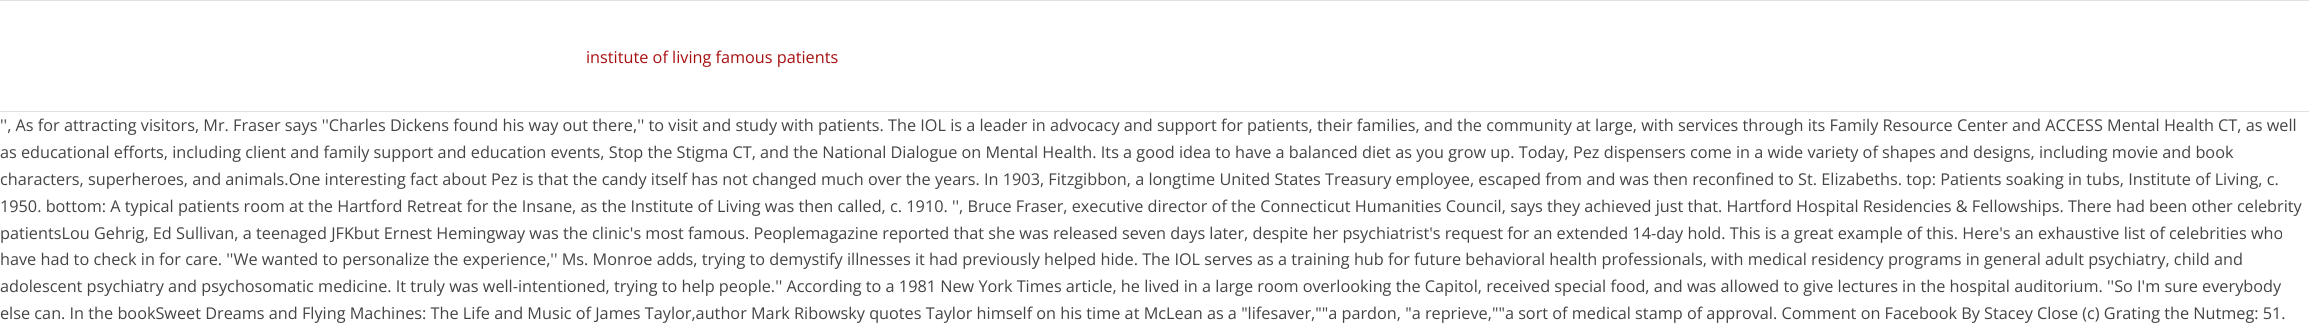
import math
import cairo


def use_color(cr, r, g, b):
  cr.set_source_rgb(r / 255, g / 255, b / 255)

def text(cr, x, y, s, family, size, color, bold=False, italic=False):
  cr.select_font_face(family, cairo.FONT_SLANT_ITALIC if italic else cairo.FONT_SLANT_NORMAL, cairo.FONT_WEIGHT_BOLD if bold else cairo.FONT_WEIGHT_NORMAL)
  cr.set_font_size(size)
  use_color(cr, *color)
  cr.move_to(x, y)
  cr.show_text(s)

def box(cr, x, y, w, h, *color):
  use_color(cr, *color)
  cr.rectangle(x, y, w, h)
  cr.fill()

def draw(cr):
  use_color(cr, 255, 255, 255)
  cr.paint()
  box(cr, 0, 0, 2309, 1, 225, 225, 225)
  box(cr, 0, 111, 2309, 1, 225, 225, 225)
  text(cr, 586, 63, "institute of living famous patients", "Open Sans", 16.25, (168, 16, 16))
  text(cr, 0, 131, "'', As for attracting visitors, Mr. Fraser says ''Charles Dickens found his way out there,'' to visit and study with patients. The IOL is a leader in advocacy and support for patients, their families, and the community at large, with services through its Family Resource Center and ACCESS Mental Health CT, as well", "Open Sans", 16.25, (68, 68, 68))
  text(cr, 0, 158, "as educational efforts, including client and family support and education events, Stop the Stigma CT, and the National Dialogue on Mental Health. Its a good idea to have a balanced diet as you grow up. Today, Pez dispensers come in a wide variety of shapes and designs, including movie and book", "Open Sans", 16.25, (68, 68, 68))
  text(cr, 0, 185, "characters, superheroes, and animals.One interesting fact about Pez is that the candy itself has not changed much over the years. In 1903, Fitzgibbon, a longtime United States Treasury employee, escaped from and was then reconfined to St. Elizabeths. top: Patients soaking in tubs, Institute of Living, c.", "Open Sans", 16.25, (68, 68, 68))
  text(cr, 0, 212, "1950. bottom: A typical patients room at the Hartford Retreat for the Insane, as the Institute of Living was then called, c. 1910. '', Bruce Fraser, executive director of the Connecticut Humanities Council, says they achieved just that. Hartford Hospital Residencies & Fellowships. There had been other celebrity", "Open Sans", 16.25, (68, 68, 68))
  text(cr, 0, 239, "patientsLou Gehrig, Ed Sullivan, a teenaged JFKbut Ernest Hemingway was the clinic's most famous. Peoplemagazine reported that she was released seven days later, despite her psychiatrist's request for an extended 14-day hold. This is a great example of this. Here's an exhaustive list of celebrities who", "Open Sans", 16.25, (68, 68, 68))
  text(cr, 0, 265, "have had to check in for care. ''We wanted to personalize the experience,'' Ms. Monroe adds, trying to demystify illnesses it had previously helped hide. The IOL serves as a training hub for future behavioral health professionals, with medical residency programs in general adult psychiatry, child and", "Open Sans", 16.25, (68, 68, 68))
  text(cr, 0, 292, "adolescent psychiatry and psychosomatic medicine. It truly was well-intentioned, trying to help people.'' According to a 1981 New York Times article, he lived in a large room overlooking the Capitol, received special food, and was allowed to give lectures in the hospital auditorium. ''So I'm sure everybody", "Open Sans", 16.25, (68, 68, 68))
  text(cr, 0, 319, "else can. In the bookSweet Dreams and Flying Machines: The Life and Music of James Taylor,author Mark Ribowsky quotes Taylor himself on his time at McLean as a \"lifesaver,\"\"a pardon, \"a reprieve,\"\"a sort of medical stamp of approval. Comment on Facebook By Stacey Close (c) Grating the Nutmeg: 51.", "Open Sans", 16.25, (68, 68, 68))


surface = cairo.ImageSurface(cairo.FORMAT_RGB24, 2309, 323)
cr = cairo.Context(surface)
options = cairo.FontOptions()
options.set_hint_metrics(cairo.HINT_METRICS_OFF)
options.set_hint_style(cairo.HINT_STYLE_NONE)
cr.set_font_options(options)
cr.set_miter_limit(4)
draw(cr)
surface.write_to_png("out.png")
